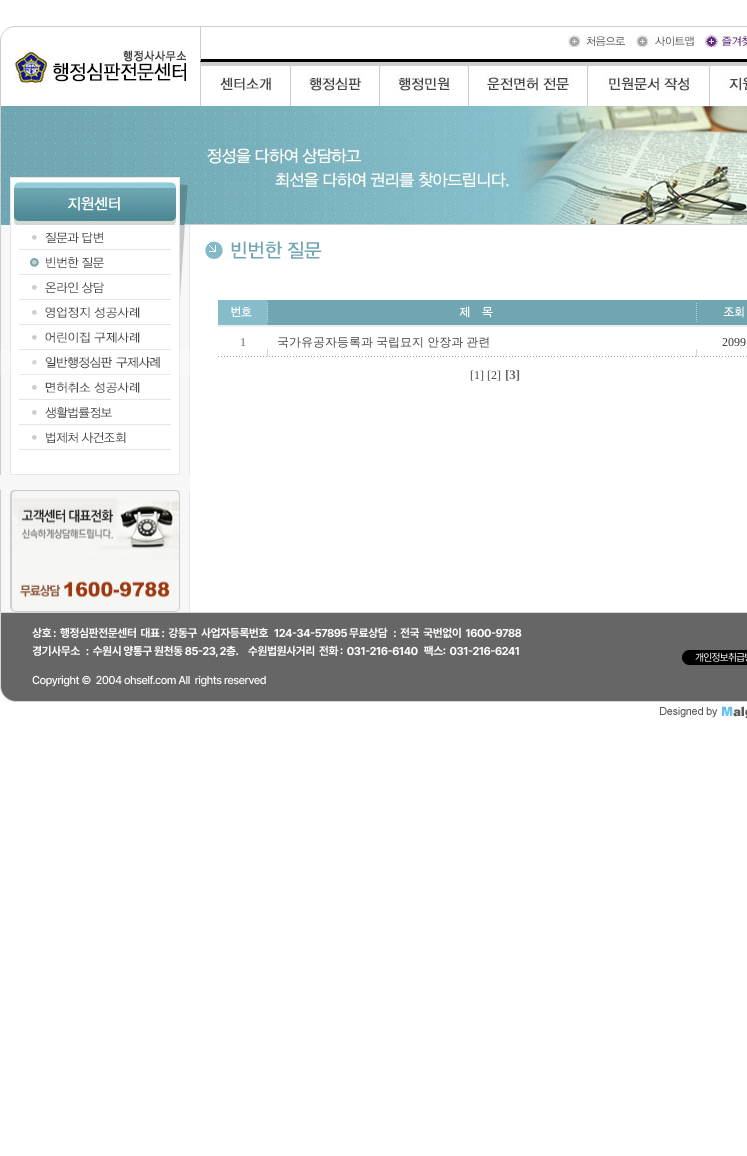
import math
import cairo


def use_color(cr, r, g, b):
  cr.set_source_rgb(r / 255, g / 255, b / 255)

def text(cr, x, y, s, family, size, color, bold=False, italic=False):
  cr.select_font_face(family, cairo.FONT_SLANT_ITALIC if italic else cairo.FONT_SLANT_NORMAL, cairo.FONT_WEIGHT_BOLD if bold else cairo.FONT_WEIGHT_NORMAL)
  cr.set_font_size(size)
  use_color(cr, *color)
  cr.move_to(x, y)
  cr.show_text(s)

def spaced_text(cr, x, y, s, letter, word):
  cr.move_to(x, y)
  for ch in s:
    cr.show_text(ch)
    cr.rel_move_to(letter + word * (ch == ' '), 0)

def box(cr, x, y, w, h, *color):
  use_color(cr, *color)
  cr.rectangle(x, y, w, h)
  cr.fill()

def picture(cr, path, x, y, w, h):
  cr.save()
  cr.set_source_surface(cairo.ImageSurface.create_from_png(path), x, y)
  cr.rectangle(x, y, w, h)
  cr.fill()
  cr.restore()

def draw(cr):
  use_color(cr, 255, 255, 255)
  cr.paint()
  picture(cr, "img_11.png", 0, 106, 747, 119)
  use_color(cr, 205, 205, 205)
  cr.set_fill_rule(cairo.FILL_RULE_EVEN_ODD)
  cr.new_path()
  cr.move_to(15, 26)
  cr.line_to(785, 26)
  cr.curve_to(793, 26, 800, 33, 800, 41)
  cr.line_to(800, 136)
  cr.line_to(0, 136)
  cr.line_to(0, 41)
  cr.curve_to(0, 33, 7, 26, 15, 26)
  cr.close_path()
  cr.move_to(15, 27)
  cr.line_to(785, 27)
  cr.curve_to(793, 27, 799, 33, 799, 41)
  cr.line_to(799, 136)
  cr.line_to(1, 136)
  cr.line_to(1, 41)
  cr.curve_to(1, 33, 7, 27, 15, 27)
  cr.close_path()
  cr.fill()
  picture(cr, "img_01.png", 15, 50, 171, 33)
  use_color(cr, 0, 0, 0)
  cr.set_fill_rule(cairo.FILL_RULE_WINDING)
  cr.new_path()
  cr.move_to(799, 62)
  cr.line_to(200, 62)
  cr.line_to(201, 59)
  cr.line_to(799, 59)
  cr.close_path()
  cr.fill()
  use_color(cr, 205, 205, 205)
  cr.new_path()
  cr.move_to(200, 62)
  cr.line_to(200, 27)
  cr.line_to(201, 27)
  cr.line_to(201, 59)
  cr.close_path()
  cr.fill()
  picture(cr, "img_02.png", 568, 35, 57, 12)
  picture(cr, "img_03.png", 636, 35, 58, 12)
  picture(cr, "img_04.png", 705, 35, 42, 12)
  box(cr, 200, 62, 547, 4, 205, 205, 205)
  box(cr, 200, 66, 1, 40, 205, 205, 205)
  picture(cr, "img_05.png", 219, 74, 54, 24)
  box(cr, 290, 66, 1, 40, 205, 205, 205)
  picture(cr, "img_06.png", 307, 74, 56, 23)
  box(cr, 379, 66, 1, 40, 205, 205, 205)
  picture(cr, "img_07.png", 396, 74, 56, 23)
  box(cr, 468, 66, 1, 40, 205, 205, 205)
  picture(cr, "img_08.png", 485, 74, 88, 20)
  box(cr, 587, 66, 1, 40, 205, 205, 205)
  picture(cr, "img_09.png", 604, 74, 88, 23)
  box(cr, 709, 66, 1, 40, 205, 205, 205)
  picture(cr, "img_10.png", 726, 74, 21, 20)
  box(cr, 0, 475, 190, 15, 247, 247, 247)
  picture(cr, "img_12.png", 0, 225, 190, 25)
  picture(cr, "img_13.png", 0, 250, 190, 25)
  picture(cr, "img_14.png", 0, 275, 190, 25)
  picture(cr, "img_15.png", 0, 300, 190, 25)
  picture(cr, "img_16.png", 0, 325, 190, 25)
  picture(cr, "img_17.png", 0, 350, 190, 25)
  picture(cr, "img_18.png", 0, 375, 190, 25)
  picture(cr, "img_19.png", 0, 400, 190, 25)
  picture(cr, "img_20.png", 0, 425, 190, 25)
  picture(cr, "img_21.png", 0, 450, 190, 25)
  picture(cr, "img_22.png", 0, 490, 190, 122)
  picture(cr, "img_23.png", 205, 241, 117, 18)
  picture(cr, "img_24.png", 218, 300, 529, 27)
  picture(cr, "img_25.png", 218, 349, 529, 8)
  picture(cr, "img_26.png", 0, 612, 747, 90)
  picture(cr, "img_27.png", 660, 706, 87, 13)
  text(cr, 240, 346, "1", "Liberation Serif", 12, (102, 102, 102))
  cr.select_font_face("WenQuanYi Zen Hei Medium")
  use_color(cr, 70, 70, 70)
  spaced_text(cr, 277, 346, "국가유공자등록과 국립묘지 안장과 관련", 0, -0.5)
  text(cr, 722, 346, "2099", "Liberation Serif", 12, (51, 51, 51))
  text(cr, 470, 379, "[1] [2]", "Liberation Serif", 12, (70, 70, 70))
  text(cr, 505, 379, "[3]", "Liberation Serif", 13, (102, 102, 102), bold=True)


surface = cairo.ImageSurface(cairo.FORMAT_RGB24, 747, 1156)
cr = cairo.Context(surface)
options = cairo.FontOptions()
options.set_hint_metrics(cairo.HINT_METRICS_OFF)
options.set_hint_style(cairo.HINT_STYLE_NONE)
cr.set_font_options(options)
cr.set_miter_limit(4)
draw(cr)
surface.write_to_png("out.png")
